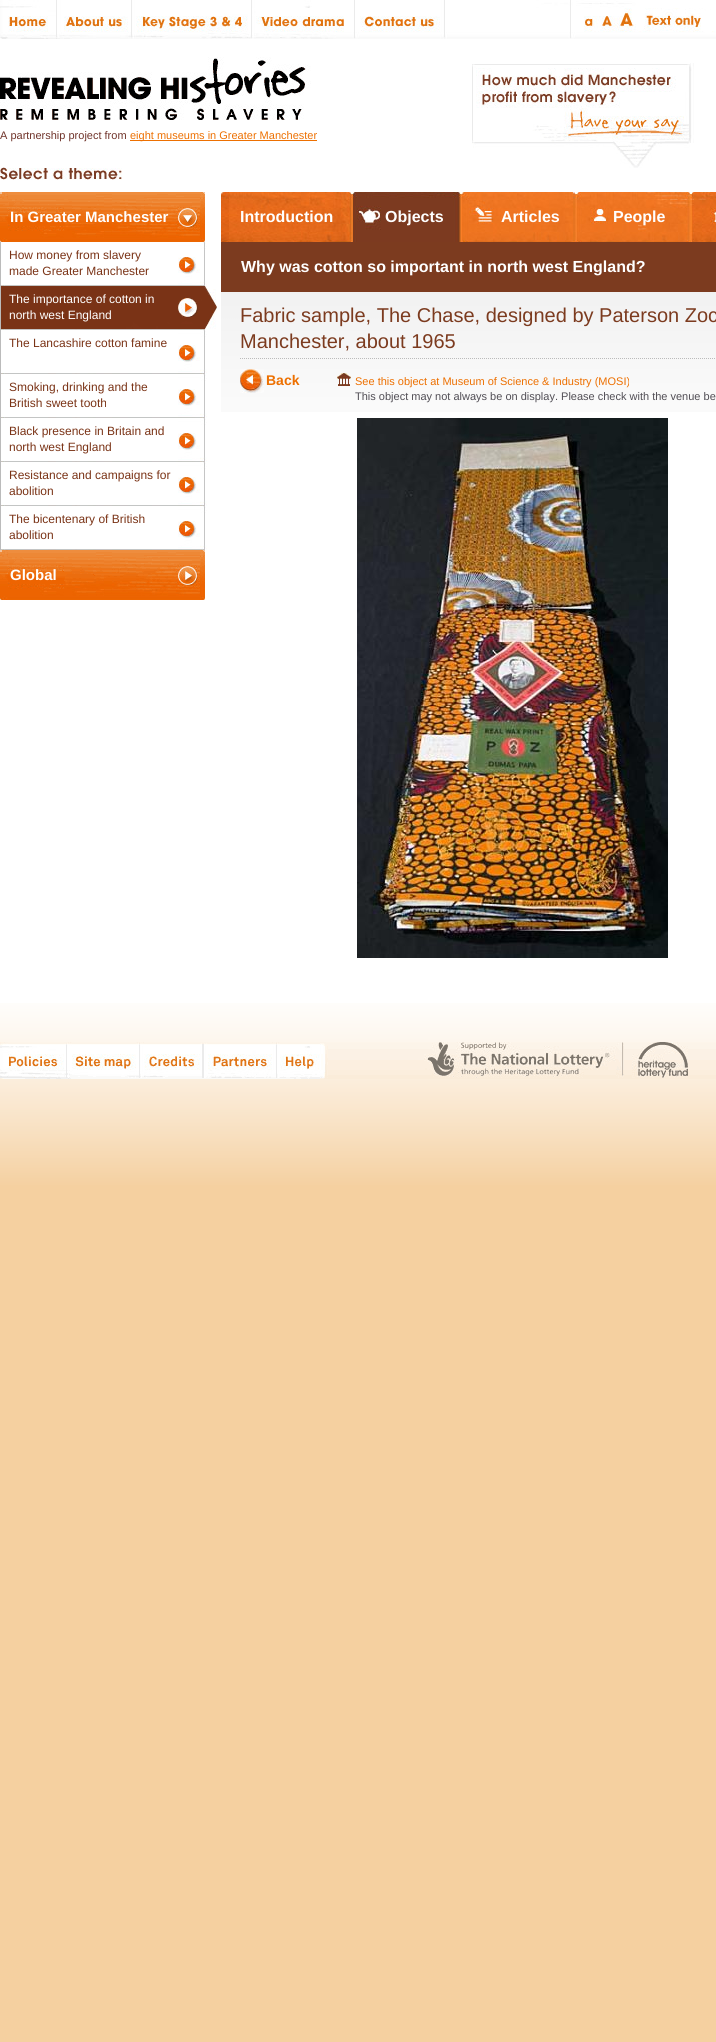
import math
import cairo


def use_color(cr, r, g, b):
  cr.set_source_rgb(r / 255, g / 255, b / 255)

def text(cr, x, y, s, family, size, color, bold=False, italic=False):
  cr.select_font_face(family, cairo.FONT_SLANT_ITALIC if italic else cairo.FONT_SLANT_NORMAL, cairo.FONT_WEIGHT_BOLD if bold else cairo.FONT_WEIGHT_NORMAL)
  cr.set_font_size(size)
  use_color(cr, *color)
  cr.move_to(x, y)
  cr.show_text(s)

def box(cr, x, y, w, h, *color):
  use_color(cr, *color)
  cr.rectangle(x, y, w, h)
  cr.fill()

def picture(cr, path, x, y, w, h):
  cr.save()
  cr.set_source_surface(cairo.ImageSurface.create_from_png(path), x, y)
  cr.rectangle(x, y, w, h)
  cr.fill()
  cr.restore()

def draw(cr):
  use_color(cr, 245, 208, 160)
  cr.paint()
  box(cr, 0, 39, 716, 964, 255, 255, 255)
  picture(cr, "img_01.png", 0, 1003, 716, 185)
  picture(cr, "img_02.png", 221, 292, 495, 120)
  picture(cr, "img_03.png", 0, 0, 716, 39)
  picture(cr, "img_04.png", 0, 167, 122, 13)
  picture(cr, "img_05.png", 0, 57, 311, 63)
  picture(cr, "img_06.png", 472, 64, 218, 104)
  picture(cr, "img_07.png", 690, 63, 4, 80)
  box(cr, 130, 140, 187, 1, 237, 112, 1)
  picture(cr, "img_08.png", 0, 192, 205, 50)
  picture(cr, "img_09.png", 1, 242, 206, 44)
  box(cr, 0, 242, 1, 308, 187, 187, 187)
  picture(cr, "img_10.png", 1, 286, 216, 44)
  picture(cr, "img_09.png", 1, 330, 206, 44)
  picture(cr, "img_09.png", 1, 374, 206, 44)
  picture(cr, "img_09.png", 1, 418, 206, 44)
  picture(cr, "img_09.png", 1, 462, 206, 44)
  picture(cr, "img_09.png", 1, 506, 206, 44)
  picture(cr, "img_11.png", 0, 550, 205, 50)
  picture(cr, "img_12.png", 221, 192, 353, 50)
  picture(cr, "img_13.png", 352, 192, 110, 50)
  picture(cr, "img_14.png", 574, 192, 118, 50)
  picture(cr, "img_15.png", 692, 192, 24, 50)
  box(cr, 221, 242, 495, 50, 124, 59, 31)
  cr.new_path()
  cr.move_to(240, 358.5)
  cr.line_to(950, 358.5)
  use_color(cr, 187, 187, 187)
  cr.set_line_width(1)
  cr.set_dash([1, 1])
  cr.stroke()
  picture(cr, "img_16.png", 240, 369, 24, 24)
  picture(cr, "img_17.png", 337, 373, 14, 13)
  picture(cr, "img_18.png", 357, 418, 311, 540)
  picture(cr, "img_19.png", 0, 1042, 716, 37)
  text(cr, 0, 139, "A partnership project from", "Liberation Sans", 11, (112, 52, 43))
  text(cr, 130, 139, "eight museums in Greater Manchester", "Liberation Sans", 11, (237, 112, 1))
  text(cr, 10, 222, "In Greater Manchester", "Liberation Sans", 15, (255, 255, 255), bold=True)
  text(cr, 9, 259, "How money from slavery", "Liberation Sans", 12, (122, 51, 22))
  text(cr, 9, 275, "made Greater Manchester", "Liberation Sans", 12, (122, 51, 22))
  text(cr, 9, 303, "The importance of cotton in", "Liberation Sans", 12, (255, 255, 255))
  text(cr, 9, 319, "north west England", "Liberation Sans", 12, (255, 255, 255))
  text(cr, 9, 347, "The Lancashire cotton famine", "Liberation Sans", 12, (122, 51, 22))
  text(cr, 9, 391, "Smoking, drinking and the", "Liberation Sans", 12, (122, 51, 22))
  text(cr, 9, 407, "British sweet tooth", "Liberation Sans", 12, (122, 51, 22))
  text(cr, 9, 435, "Black presence in Britain and", "Liberation Sans", 12, (122, 51, 22))
  text(cr, 9, 451, "north west England", "Liberation Sans", 12, (122, 51, 22))
  text(cr, 9, 479, "Resistance and campaigns for", "Liberation Sans", 12, (122, 51, 22))
  text(cr, 9, 495, "abolition", "Liberation Sans", 12, (122, 51, 22))
  text(cr, 9, 523, "The bicentenary of British", "Liberation Sans", 12, (122, 51, 22))
  text(cr, 9, 539, "abolition", "Liberation Sans", 12, (122, 51, 22))
  text(cr, 10, 580, "Global", "Liberation Sans", 15, (255, 255, 255), bold=True)
  text(cr, 240, 222, "Introduction", "Liberation Sans", 16, (255, 255, 255), bold=True)
  text(cr, 385, 222, "Objects", "Liberation Sans", 16, (255, 255, 255), bold=True)
  text(cr, 501, 222, "Articles", "Liberation Sans", 16, (255, 255, 255), bold=True)
  text(cr, 613, 222, "People", "Liberation Sans", 16, (255, 255, 255), bold=True)
  text(cr, 241, 272, "Why was cotton so important in north west England?", "Liberation Sans", 16, (255, 255, 255), bold=True)
  text(cr, 240, 322, "Fabric sample, The Chase, designed by Paterson Zoc", "Liberation Sans", 20, (124, 59, 31))
  text(cr, 240, 348, "Manchester, about 1965", "Liberation Sans", 20, (124, 59, 31))
  text(cr, 266, 385, "Back", "Liberation Sans", 14, (237, 112, 1), bold=True)
  text(cr, 355, 385, "See this object at Museum of Science & Industry (MOSI)", "Liberation Sans", 11, (237, 112, 1))
  text(cr, 355, 400, "This object may not always be on display. Please check with the venue be", "Liberation Sans", 11, (81, 78, 85))


surface = cairo.ImageSurface(cairo.FORMAT_RGB24, 716, 2042)
cr = cairo.Context(surface)
options = cairo.FontOptions()
options.set_hint_metrics(cairo.HINT_METRICS_OFF)
options.set_hint_style(cairo.HINT_STYLE_NONE)
cr.set_font_options(options)
cr.set_miter_limit(4)
draw(cr)
surface.write_to_png("out.png")
